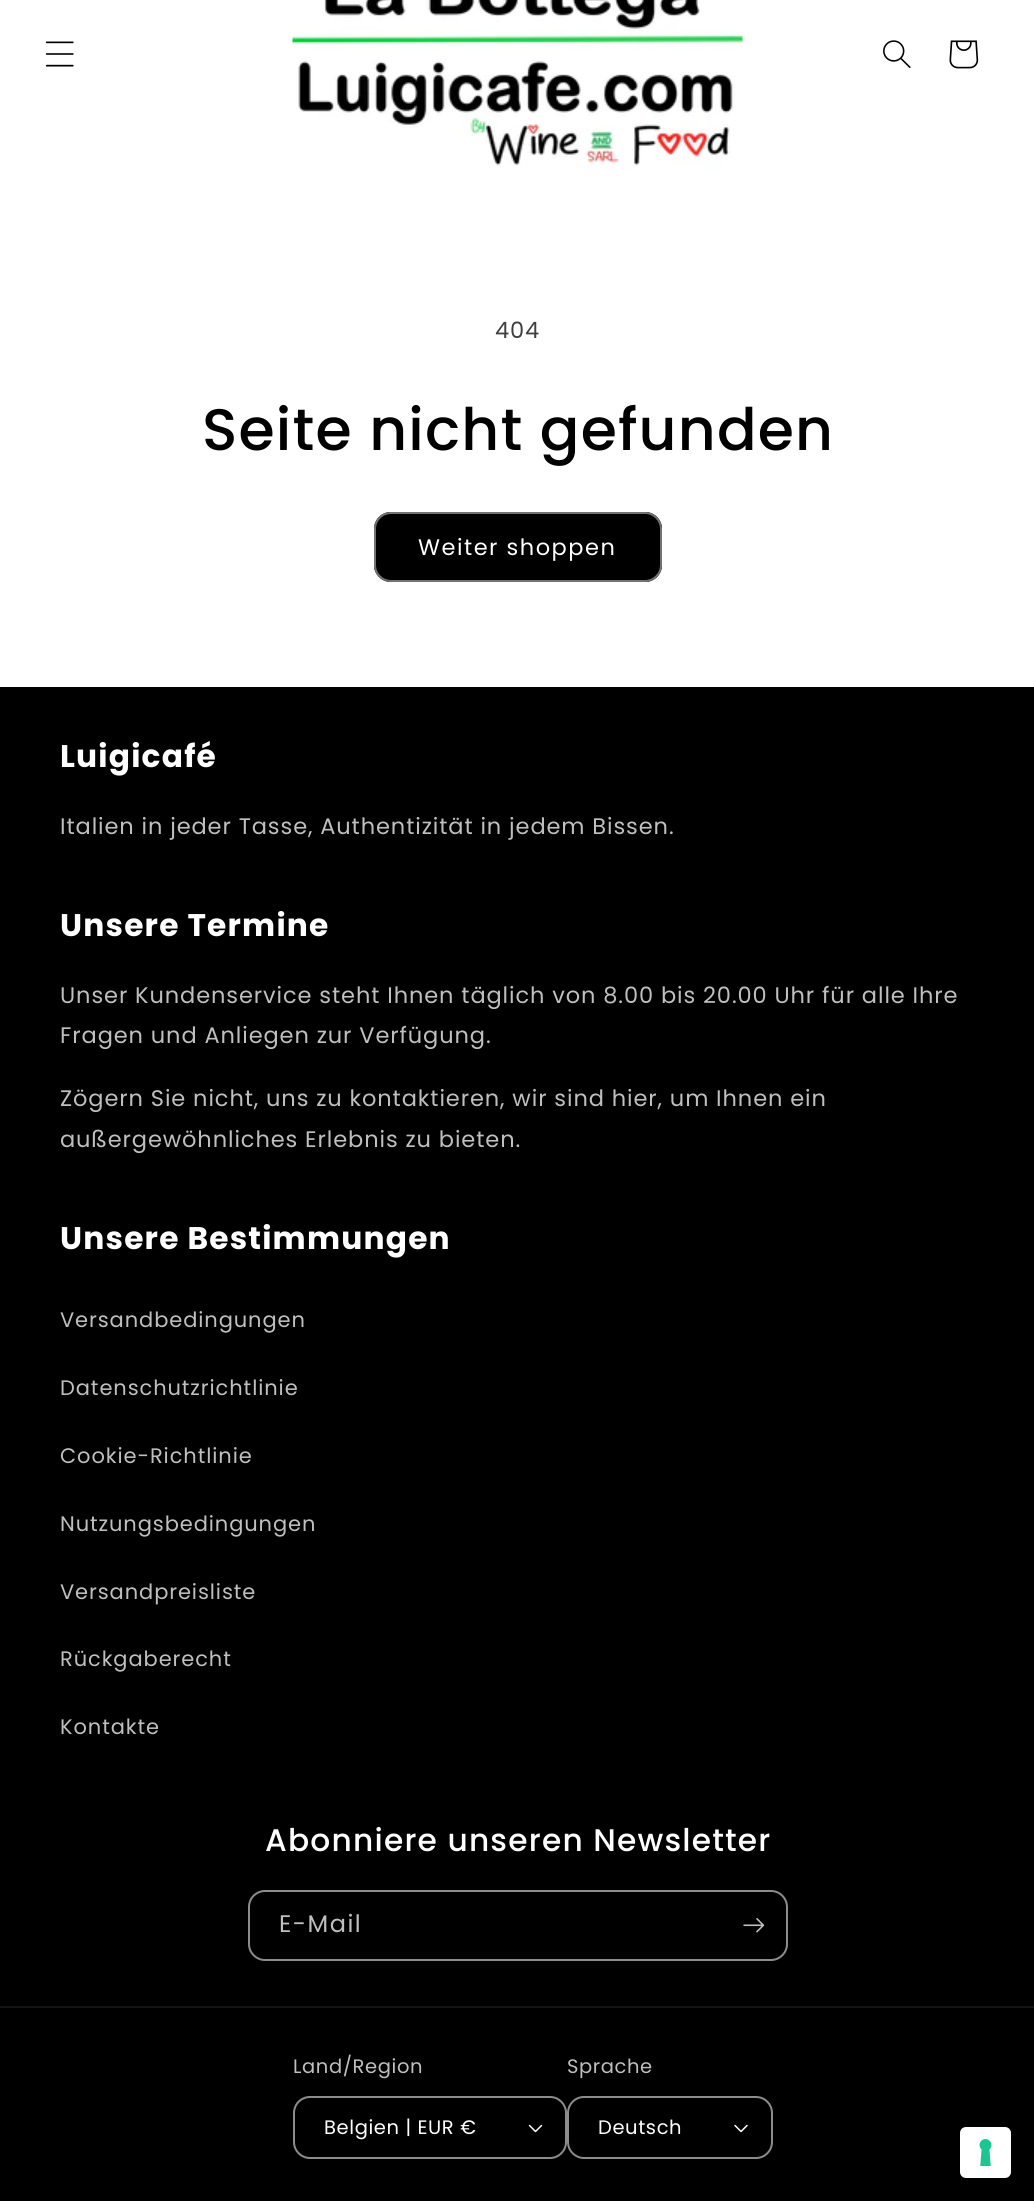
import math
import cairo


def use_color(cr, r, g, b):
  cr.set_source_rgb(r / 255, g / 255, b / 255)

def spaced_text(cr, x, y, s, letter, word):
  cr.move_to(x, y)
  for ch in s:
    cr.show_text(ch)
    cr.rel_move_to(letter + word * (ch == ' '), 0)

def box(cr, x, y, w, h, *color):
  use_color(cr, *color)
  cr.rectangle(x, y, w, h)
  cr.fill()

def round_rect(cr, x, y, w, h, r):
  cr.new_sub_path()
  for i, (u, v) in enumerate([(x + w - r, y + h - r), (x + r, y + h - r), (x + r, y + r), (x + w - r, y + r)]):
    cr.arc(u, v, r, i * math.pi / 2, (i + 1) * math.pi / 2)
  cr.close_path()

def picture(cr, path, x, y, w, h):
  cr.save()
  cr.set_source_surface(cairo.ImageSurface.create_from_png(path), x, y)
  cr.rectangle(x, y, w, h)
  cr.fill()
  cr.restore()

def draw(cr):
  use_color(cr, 255, 255, 255)
  cr.paint()
  picture(cr, "img_01.png", 45, 41, 29, 26)
  picture(cr, "img_02.png", 292, 0, 451, 171)
  picture(cr, "img_03.png", 883, 40, 28, 28)
  picture(cr, "img_04.png", 949, 40, 30, 29)
  use_color(cr, 0, 0, 0)
  round_rect(cr, 374, 512, 288, 70, 17)
  cr.fill()
  round_rect(cr, 375, 513, 286, 68, 16)
  cr.stroke()
  round_rect(cr, 375, 513, 286, 68, 16)
  cr.set_source_rgba(1, 1, 1, 0.45)
  cr.stroke()
  box(cr, 0, 687, 1034, 1514, 0, 0, 0)
  round_rect(cr, 249, 1891, 538, 69, 16)
  use_color(cr, 140, 140, 140)
  cr.stroke()
  picture(cr, "img_05.png", 743, 1918, 22, 15)
  box(cr, 0, 2006, 1034, 2, 20, 20, 20)
  picture(cr, "img_06.png", 528, 2124, 15, 9)
  round_rect(cr, 294, 2097, 272, 61, 16)
  use_color(cr, 140, 140, 140)
  cr.stroke()
  picture(cr, "img_07.png", 734, 2124, 14, 9)
  round_rect(cr, 568, 2097, 204, 61, 16)
  cr.stroke()
  use_color(cr, 255, 255, 255)
  round_rect(cr, 960, 2127, 51, 51, 6)
  cr.fill()
  picture(cr, "img_08.png", 979, 2139, 13, 27)
  cr.select_font_face("Poppins")
  cr.set_font_size(22.5)
  use_color(cr, 64, 64, 64)
  spaced_text(cr, 495, 338, "404", 0.9, 0)
  cr.select_font_face("Poppins Medium")
  cr.set_font_size(58.5)
  use_color(cr, 0, 0, 0)
  spaced_text(cr, 202, 450, "Seite nicht gefunden", 1.2, 0)
  cr.select_font_face("Poppins")
  cr.set_font_size(22.5)
  use_color(cr, 255, 255, 255)
  spaced_text(cr, 418, 555, "Weiter shoppen", 1.5, 0)
  cr.select_font_face("Poppins", cairo.FONT_SLANT_NORMAL, cairo.FONT_WEIGHT_BOLD)
  cr.set_font_size(31.25)
  spaced_text(cr, 60, 767, "Luigicafé", 1.2, 0)
  cr.select_font_face("Poppins")
  cr.set_font_size(22.5)
  use_color(cr, 191, 191, 191)
  spaced_text(cr, 60, 834, "Italien in jeder Tasse, Authentizität in jedem Bissen.", 0.9, 0)
  cr.select_font_face("Poppins", cairo.FONT_SLANT_NORMAL, cairo.FONT_WEIGHT_BOLD)
  cr.set_font_size(31.25)
  use_color(cr, 255, 255, 255)
  spaced_text(cr, 60, 936, "Unsere Termine", 1.2, 0)
  cr.select_font_face("Poppins")
  cr.set_font_size(22.5)
  use_color(cr, 191, 191, 191)
  spaced_text(cr, 60, 1003, "Unser Kundenservice steht Ihnen täglich von 8.00 bis 20.00 Uhr für alle Ihre", 0.9, 0)
  spaced_text(cr, 60, 1043, "Fragen und Anliegen zur Verfügung.", 0.9, 0)
  spaced_text(cr, 60, 1106, "Zögern Sie nicht, uns zu kontaktieren, wir sind hier, um Ihnen ein", 0.9, 0)
  spaced_text(cr, 60, 1147, "außergewöhnliches Erlebnis zu bieten.", 0.9, 0)
  cr.select_font_face("Poppins", cairo.FONT_SLANT_NORMAL, cairo.FONT_WEIGHT_BOLD)
  cr.set_font_size(31.25)
  use_color(cr, 255, 255, 255)
  spaced_text(cr, 60, 1249, "Unsere Bestimmungen", 1.2, 0)
  cr.select_font_face("Poppins")
  cr.set_font_size(21)
  use_color(cr, 191, 191, 191)
  spaced_text(cr, 60, 1327, "Versandbedingungen", 0.9, 0)
  spaced_text(cr, 60, 1395, "Datenschutzrichtlinie", 0.9, 0)
  spaced_text(cr, 60, 1463, "Cookie-Richtlinie", 0.9, 0)
  spaced_text(cr, 60, 1531, "Nutzungsbedingungen", 0.9, 0)
  spaced_text(cr, 60, 1599, "Versandpreisliste", 0.9, 0)
  spaced_text(cr, 60, 1666, "Rückgaberecht", 0.9, 0)
  spaced_text(cr, 60, 1734, "Kontakte", 0.9, 0)
  cr.select_font_face("Poppins Medium")
  cr.set_font_size(31.25)
  use_color(cr, 255, 255, 255)
  spaced_text(cr, 265, 1851, "Abonniere unseren Newsletter", 1.2, 0)
  cr.select_font_face("Poppins")
  cr.set_font_size(24)
  use_color(cr, 191, 191, 191)
  spaced_text(cr, 279, 1932, "E-Mail", 1.5, 0)
  cr.set_font_size(19.5)
  spaced_text(cr, 293, 2073, "Land/Region", 0.6, 0)
  use_color(cr, 255, 255, 255)
  spaced_text(cr, 324, 2134, "Belgien | EUR €", 0.6, 0)
  use_color(cr, 191, 191, 191)
  spaced_text(cr, 567, 2073, "Sprache", 0.6, 0)
  use_color(cr, 255, 255, 255)
  spaced_text(cr, 598, 2134, "Deutsch", 0.6, 0)


surface = cairo.ImageSurface(cairo.FORMAT_RGB24, 1034, 2201)
cr = cairo.Context(surface)
options = cairo.FontOptions()
options.set_hint_metrics(cairo.HINT_METRICS_OFF)
options.set_hint_style(cairo.HINT_STYLE_NONE)
cr.set_font_options(options)
cr.set_miter_limit(4)
draw(cr)
surface.write_to_png("out.png")
